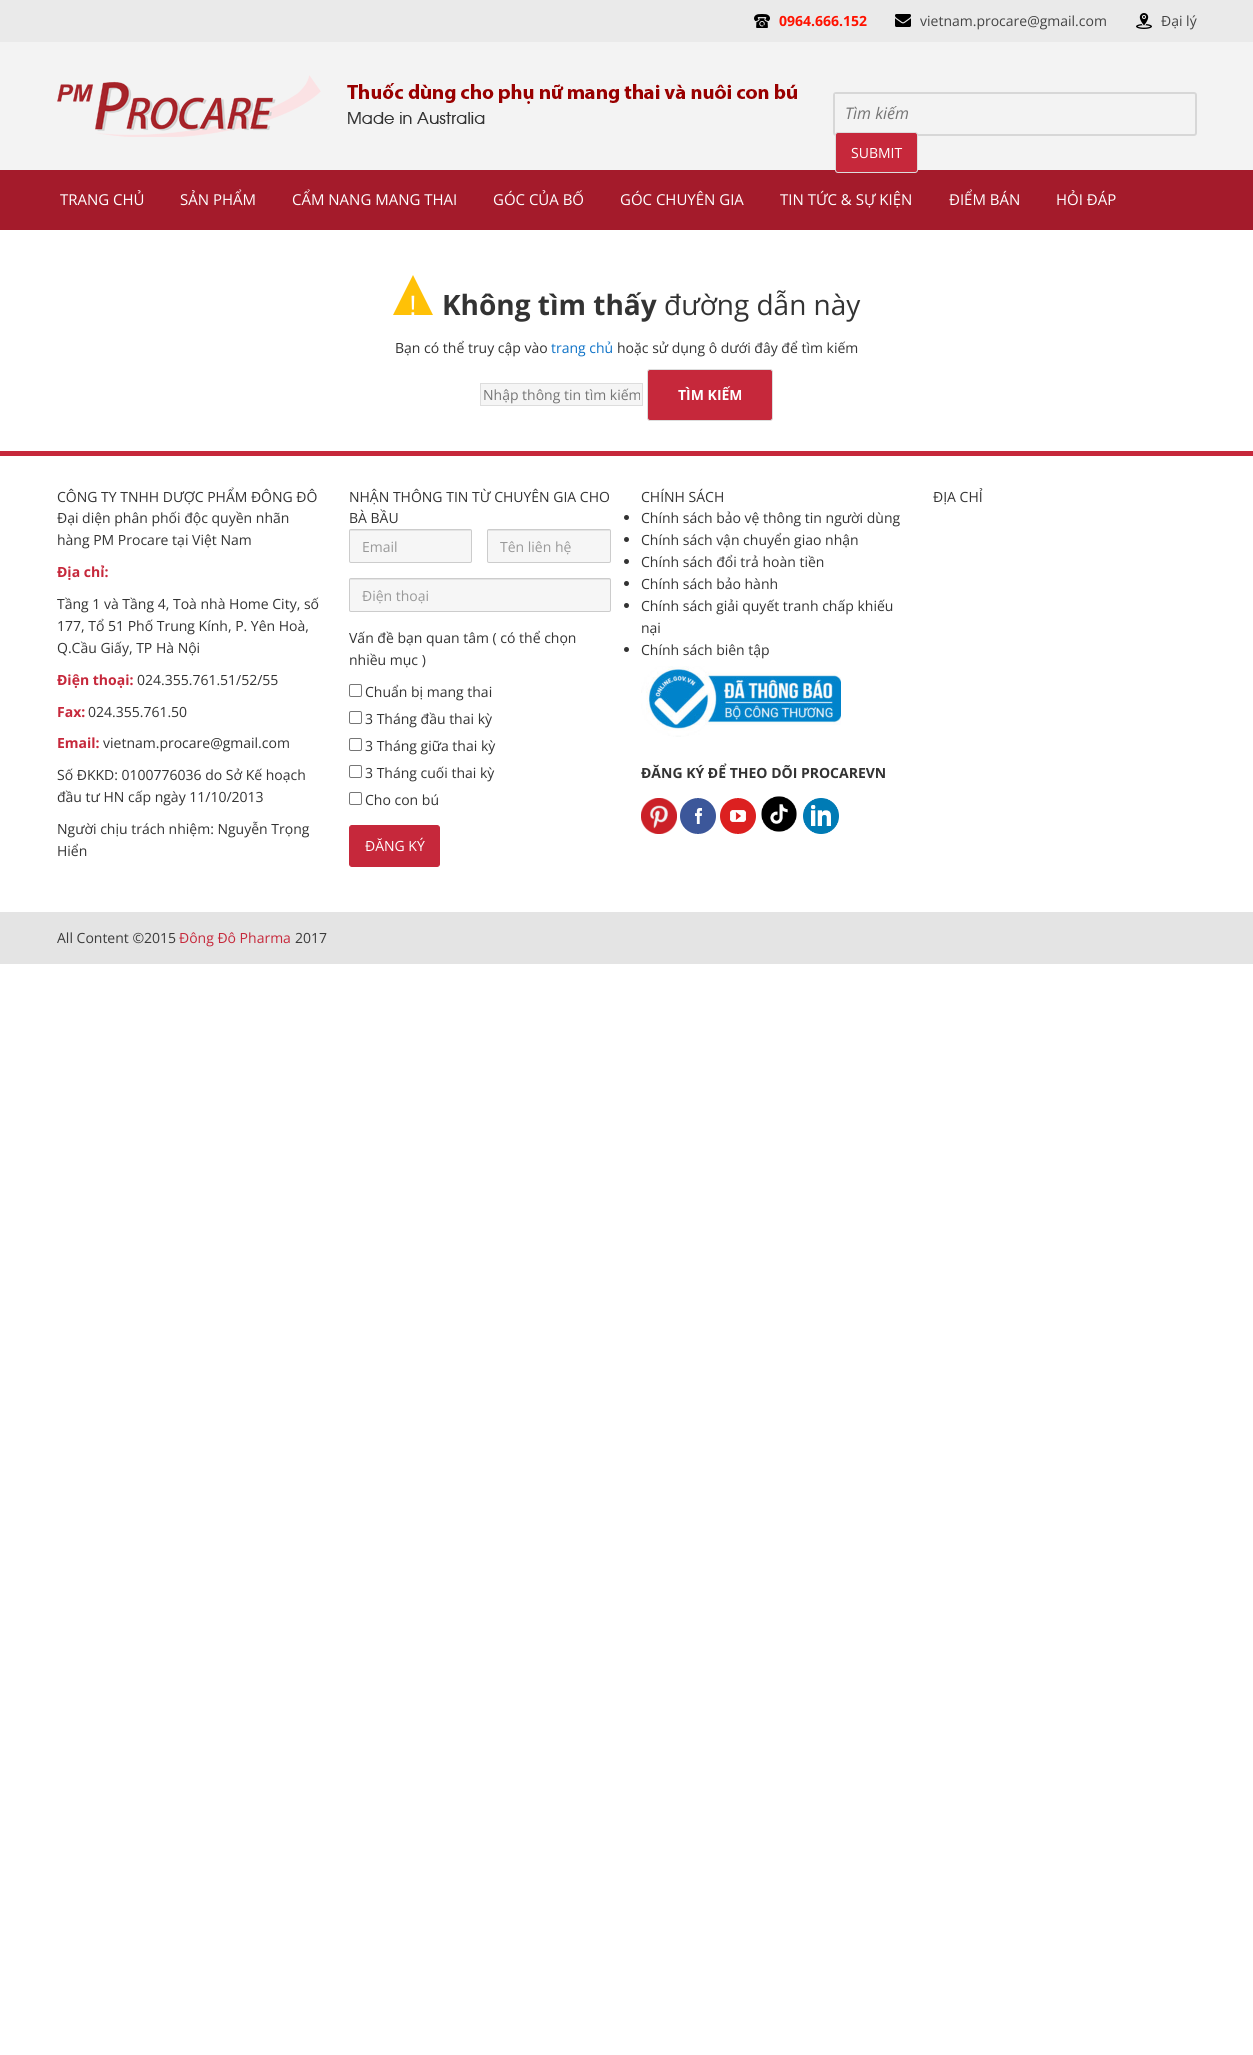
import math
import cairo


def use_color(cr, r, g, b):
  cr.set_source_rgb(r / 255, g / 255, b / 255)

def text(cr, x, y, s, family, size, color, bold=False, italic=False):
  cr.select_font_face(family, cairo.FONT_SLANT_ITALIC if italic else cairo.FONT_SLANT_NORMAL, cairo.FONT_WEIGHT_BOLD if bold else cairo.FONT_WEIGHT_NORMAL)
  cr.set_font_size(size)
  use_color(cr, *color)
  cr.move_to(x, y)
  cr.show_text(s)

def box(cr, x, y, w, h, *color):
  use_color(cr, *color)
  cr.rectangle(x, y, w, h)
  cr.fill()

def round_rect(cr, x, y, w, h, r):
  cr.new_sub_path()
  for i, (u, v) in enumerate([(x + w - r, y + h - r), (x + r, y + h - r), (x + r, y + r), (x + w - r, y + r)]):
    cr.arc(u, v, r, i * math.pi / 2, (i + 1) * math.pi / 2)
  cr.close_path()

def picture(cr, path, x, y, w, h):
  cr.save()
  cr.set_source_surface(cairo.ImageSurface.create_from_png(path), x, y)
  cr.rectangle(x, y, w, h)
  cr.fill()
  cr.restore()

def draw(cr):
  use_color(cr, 255, 255, 255)
  cr.paint()
  box(cr, 0, 0, 1253, 42, 234, 234, 234)
  picture(cr, "img_01.png", 754, 14, 16, 14)
  picture(cr, "img_02.png", 895, 14, 16, 13)
  picture(cr, "img_03.png", 1136, 13, 16, 16)
  box(cr, 0, 42, 1253, 128, 243, 243, 243)
  picture(cr, "img_04.png", 57, 75, 264, 62)
  picture(cr, "img_05.png", 347, 83, 450, 41)
  round_rect(cr, 834, 93, 362, 42, 2)
  use_color(cr, 215, 215, 215)
  cr.stroke()
  box(cr, 835, 94, 1, 1, 245, 245, 245)
  box(cr, 0, 170, 1253, 60, 164, 27, 43)
  use_color(cr, 198, 40, 59)
  round_rect(cr, 835.5, 132.5, 82, 40, 2.5)
  cr.fill_preserve()
  use_color(cr, 221, 221, 221)
  cr.set_line_width(1)
  cr.stroke()
  use_color(cr, 255, 193, 7)
  cr.new_path()
  cr.move_to(433, 315)
  cr.line_to(393, 315)
  cr.line_to(413, 275)
  cr.close_path()
  cr.fill()
  use_color(cr, 245, 245, 245)
  cr.rectangle(480.5, 383.5, 162, 22)
  cr.fill_preserve()
  use_color(cr, 221, 221, 221)
  cr.stroke()
  use_color(cr, 198, 40, 59)
  round_rect(cr, 647.5, 369.5, 125, 51, 2.5)
  cr.fill_preserve()
  use_color(cr, 221, 221, 221)
  cr.stroke()
  box(cr, 0, 451, 1253, 5, 198, 40, 59)
  use_color(cr, 246, 246, 246)
  round_rect(cr, 349, 529, 123, 34, 2)
  cr.fill()
  use_color(cr, 228, 228, 228)
  cr.new_path()
  cr.move_to(351, 531)
  cr.line_to(471, 531)
  cr.line_to(471, 532)
  cr.curve_to(471, 531, 471, 530, 470, 530)
  cr.line_to(351, 530)
  cr.curve_to(350, 530, 350, 531, 350, 532)
  cr.curve_to(350, 531, 350, 531, 351, 531)
  cr.close_path()
  cr.fill()
  round_rect(cr, 349.5, 529.5, 122, 33, 1.5)
  use_color(cr, 204, 204, 204)
  cr.stroke()
  use_color(cr, 246, 246, 246)
  round_rect(cr, 487, 529, 124, 34, 2)
  cr.fill()
  use_color(cr, 228, 228, 228)
  cr.new_path()
  cr.move_to(489, 531)
  cr.line_to(610, 531)
  cr.line_to(610, 532)
  cr.curve_to(610, 531, 610, 530, 609, 530)
  cr.line_to(489, 530)
  cr.curve_to(488, 530, 488, 531, 488, 532)
  cr.curve_to(488, 531, 488, 531, 489, 531)
  cr.close_path()
  cr.fill()
  round_rect(cr, 487.5, 529.5, 123, 33, 1.5)
  use_color(cr, 204, 204, 204)
  cr.stroke()
  use_color(cr, 246, 246, 246)
  round_rect(cr, 349, 578, 262, 34, 2)
  cr.fill()
  use_color(cr, 228, 228, 228)
  cr.new_path()
  cr.move_to(351, 580)
  cr.line_to(609, 580)
  cr.curve_to(610, 580, 610, 580, 610, 581)
  cr.line_to(610, 579)
  cr.line_to(351, 579)
  cr.curve_to(350, 579, 350, 580, 350, 581)
  cr.curve_to(350, 580, 350, 580, 351, 580)
  cr.close_path()
  cr.fill()
  round_rect(cr, 349.5, 578.5, 261, 33, 1.5)
  use_color(cr, 204, 204, 204)
  cr.stroke()
  round_rect(cr, 349.5, 684.5, 12, 12, 1.5)
  use_color(cr, 118, 118, 118)
  cr.stroke()
  round_rect(cr, 349.5, 711.5, 12, 12, 1.5)
  cr.stroke()
  round_rect(cr, 349.5, 738.5, 12, 12, 1.5)
  cr.stroke()
  round_rect(cr, 349.5, 765.5, 12, 12, 1.5)
  cr.stroke()
  round_rect(cr, 349.5, 792.5, 12, 12, 1.5)
  cr.stroke()
  use_color(cr, 198, 40, 59)
  round_rect(cr, 349.5, 825.5, 90, 41, 2.5)
  cr.fill_preserve()
  cr.stroke()
  use_color(cr, 51, 51, 51)
  cr.arc(626.5, 517.5, 2.5, 0, 2 * math.pi)
  cr.fill()
  cr.arc(626.5, 539.5, 2.5, 0, 2 * math.pi)
  cr.fill()
  cr.arc(626.5, 561.5, 2.5, 0, 2 * math.pi)
  cr.fill()
  cr.arc(626.5, 583.5, 2.5, 0, 2 * math.pi)
  cr.fill()
  cr.arc(626.5, 605.5, 2.5, 0, 2 * math.pi)
  cr.fill()
  cr.arc(626.5, 649.5, 2.5, 0, 2 * math.pi)
  cr.fill()
  picture(cr, "img_06.png", 641, 666, 200, 71)
  picture(cr, "img_07.png", 641, 798, 36, 36)
  picture(cr, "img_08.png", 680, 798, 36, 36)
  picture(cr, "img_09.png", 720, 798, 36, 36)
  picture(cr, "img_10.png", 761, 796, 36, 36)
  picture(cr, "img_11.png", 803, 798, 36, 36)
  box(cr, 0, 912, 1253, 52, 228, 228, 228)
  text(cr, 779, 26, "0964.666.152", "Open Sans", 14, (255, 18, 0), bold=True)
  text(cr, 920, 26, "vietnam.procare@gmail.com", "Open Sans", 14, (68, 68, 68))
  text(cr, 1161, 26, "Đại lý", "Open Sans", 14, (68, 68, 68))
  text(cr, 845, 119, "Tìm kiếm", "Open Sans", 16, (117, 117, 117), italic=True)
  text(cr, 851, 158, "SUBMIT", "Open Sans", 14, (255, 255, 255))
  text(cr, 60, 205, "TRANG CHỦ", "Open Sans", 15, (255, 255, 255))
  text(cr, 180, 205, "SẢN PHẨM", "Open Sans", 15, (255, 255, 255))
  text(cr, 292, 205, "CẨM NANG MANG THAI", "Open Sans", 15, (255, 255, 255))
  text(cr, 493, 205, "GÓC CỦA BỐ", "Open Sans", 15, (255, 255, 255))
  text(cr, 620, 205, "GÓC CHUYÊN GIA", "Open Sans", 15, (255, 255, 255))
  text(cr, 780, 205, "TIN TỨC & SỰ KIỆN", "Open Sans", 15, (255, 255, 255))
  text(cr, 949, 205, "ĐIỂM BÁN", "Open Sans", 15, (255, 255, 255))
  text(cr, 1056, 205, "HỎI ĐÁP", "Open Sans", 15, (255, 255, 255))
  text(cr, 442, 315, "Không tìm thấy", "Open Sans", 28, (51, 51, 51), bold=True)
  text(cr, 664, 315, "đường dẫn này", "Open Sans", 28, (51, 51, 51))
  text(cr, 409, 315, "!", "Liberation Sans", 28, (255, 255, 255))
  text(cr, 395, 353, "Bạn có thể truy cập vào", "Open Sans", 14, (51, 51, 51))
  text(cr, 551, 353, "trang chủ", "Open Sans", 14, (13, 114, 199))
  text(cr, 617, 353, "hoặc sử dụng ô dưới đây để tìm kiếm", "Open Sans", 14, (51, 51, 51))
  cr.save()
  cr.rectangle(483, 385, 157, 19)
  cr.clip()
  text(cr, 483, 400, "Nhập thông tin tìm kiếm", "Open Sans", 14, (117, 117, 117))
  cr.restore()
  text(cr, 678, 400, "TÌM KIẾM", "Open Sans", 14, (255, 255, 255), bold=True)
  text(cr, 57, 502, "CÔNG TY TNHH DƯỢC PHẨM ĐÔNG ĐÔ", "Open Sans", 14, (51, 51, 51))
  text(cr, 57, 523, "Đại diện phân phối độc quyền nhãn", "Open Sans", 14, (51, 51, 51))
  text(cr, 57, 545, "hàng PM Procare tại Việt Nam", "Open Sans", 14, (51, 51, 51))
  text(cr, 57, 577, "Địa chỉ:", "Open Sans", 14, (198, 40, 59), bold=True)
  text(cr, 57, 609, "Tầng 1 và Tầng 4, Toà nhà Home City, số", "Open Sans", 14, (51, 51, 51))
  text(cr, 57, 631, "177, Tổ 51 Phố Trung Kính, P. Yên Hoà,", "Open Sans", 14, (51, 51, 51))
  text(cr, 57, 653, "Q.Cầu Giấy, TP Hà Nội", "Open Sans", 14, (51, 51, 51))
  text(cr, 57, 685, "Điện thoại:", "Open Sans", 14, (198, 40, 59), bold=True)
  text(cr, 137, 685, "024.355.761.51/52/55", "Open Sans", 14, (51, 51, 51))
  text(cr, 57, 717, "Fax:", "Open Sans", 14, (198, 40, 59), bold=True)
  text(cr, 88, 717, "024.355.761.50", "Open Sans", 14, (51, 51, 51))
  text(cr, 57, 748, "Email:", "Open Sans", 14, (198, 40, 59), bold=True)
  text(cr, 103, 748, "vietnam.procare@gmail.com", "Open Sans", 14, (51, 51, 51))
  text(cr, 57, 780, "Số ĐKKD: 0100776036 do Sở Kế hoạch", "Open Sans", 14, (51, 51, 51))
  text(cr, 57, 802, "đầu tư HN cấp ngày 11/10/2013", "Open Sans", 14, (51, 51, 51))
  text(cr, 57, 834, "Người chịu trách nhiệm: Nguyễn Trọng", "Open Sans", 14, (51, 51, 51))
  text(cr, 57, 856, "Hiển", "Open Sans", 14, (51, 51, 51))
  text(cr, 349, 502, "NHẬN THÔNG TIN TỪ CHUYÊN GIA CHO", "Open Sans", 14, (51, 51, 51))
  text(cr, 349, 523, "BÀ BẦU", "Open Sans", 14, (51, 51, 51))
  text(cr, 362, 552, "Email", "Open Sans", 14, (153, 153, 153))
  text(cr, 500, 552, "Tên liên hệ", "Open Sans", 14, (153, 153, 153))
  text(cr, 362, 601, "Điện thoại", "Open Sans", 14, (153, 153, 153))
  text(cr, 349, 643, "Vấn đề bạn quan tâm ( có thể chọn", "Open Sans", 14, (51, 51, 51))
  text(cr, 349, 665, "nhiều mục )", "Open Sans", 14, (51, 51, 51))
  text(cr, 365, 697, "Chuẩn bị mang thai", "Open Sans", 14, (51, 51, 51))
  text(cr, 365, 724, "3 Tháng đầu thai kỳ", "Open Sans", 14, (51, 51, 51))
  text(cr, 365, 751, "3 Tháng giữa thai kỳ", "Open Sans", 14, (51, 51, 51))
  text(cr, 365, 778, "3 Tháng cuối thai kỳ", "Open Sans", 14, (51, 51, 51))
  text(cr, 365, 805, "Cho con bú", "Open Sans", 14, (51, 51, 51))
  text(cr, 365, 851, "ĐĂNG KÝ", "Open Sans", 14, (255, 255, 255))
  text(cr, 641, 502, "CHÍNH SÁCH", "Open Sans", 14, (51, 51, 51))
  text(cr, 641, 523, "Chính sách bảo vệ thông tin người dùng", "Open Sans", 14, (51, 51, 51))
  text(cr, 641, 545, "Chính sách vận chuyển giao nhận", "Open Sans", 14, (51, 51, 51))
  text(cr, 641, 567, "Chính sách đổi trả hoàn tiền", "Open Sans", 14, (51, 51, 51))
  text(cr, 641, 589, "Chính sách bảo hành", "Open Sans", 14, (51, 51, 51))
  text(cr, 641, 611, "Chính sách giải quyết tranh chấp khiếu", "Open Sans", 14, (51, 51, 51))
  text(cr, 641, 633, "nại", "Open Sans", 14, (51, 51, 51))
  text(cr, 641, 655, "Chính sách biên tập", "Open Sans", 14, (51, 51, 51))
  text(cr, 641, 778, "ĐĂNG KÝ ĐỂ THEO DÕI PROCAREVN", "Open Sans", 14, (51, 51, 51), bold=True)
  text(cr, 933, 502, "ĐỊA CHỈ", "Open Sans", 14, (51, 51, 51))
  text(cr, 57, 943, "All Content ©2015", "Open Sans", 14, (59, 59, 59))
  text(cr, 179, 943, "Đông Đô Pharma", "Open Sans", 14, (198, 40, 59))
  text(cr, 295, 943, "2017", "Open Sans", 14, (59, 59, 59))


surface = cairo.ImageSurface(cairo.FORMAT_RGB24, 1253, 2055)
cr = cairo.Context(surface)
options = cairo.FontOptions()
options.set_hint_metrics(cairo.HINT_METRICS_OFF)
options.set_hint_style(cairo.HINT_STYLE_NONE)
cr.set_font_options(options)
cr.set_miter_limit(4)
draw(cr)
surface.write_to_png("out.png")
